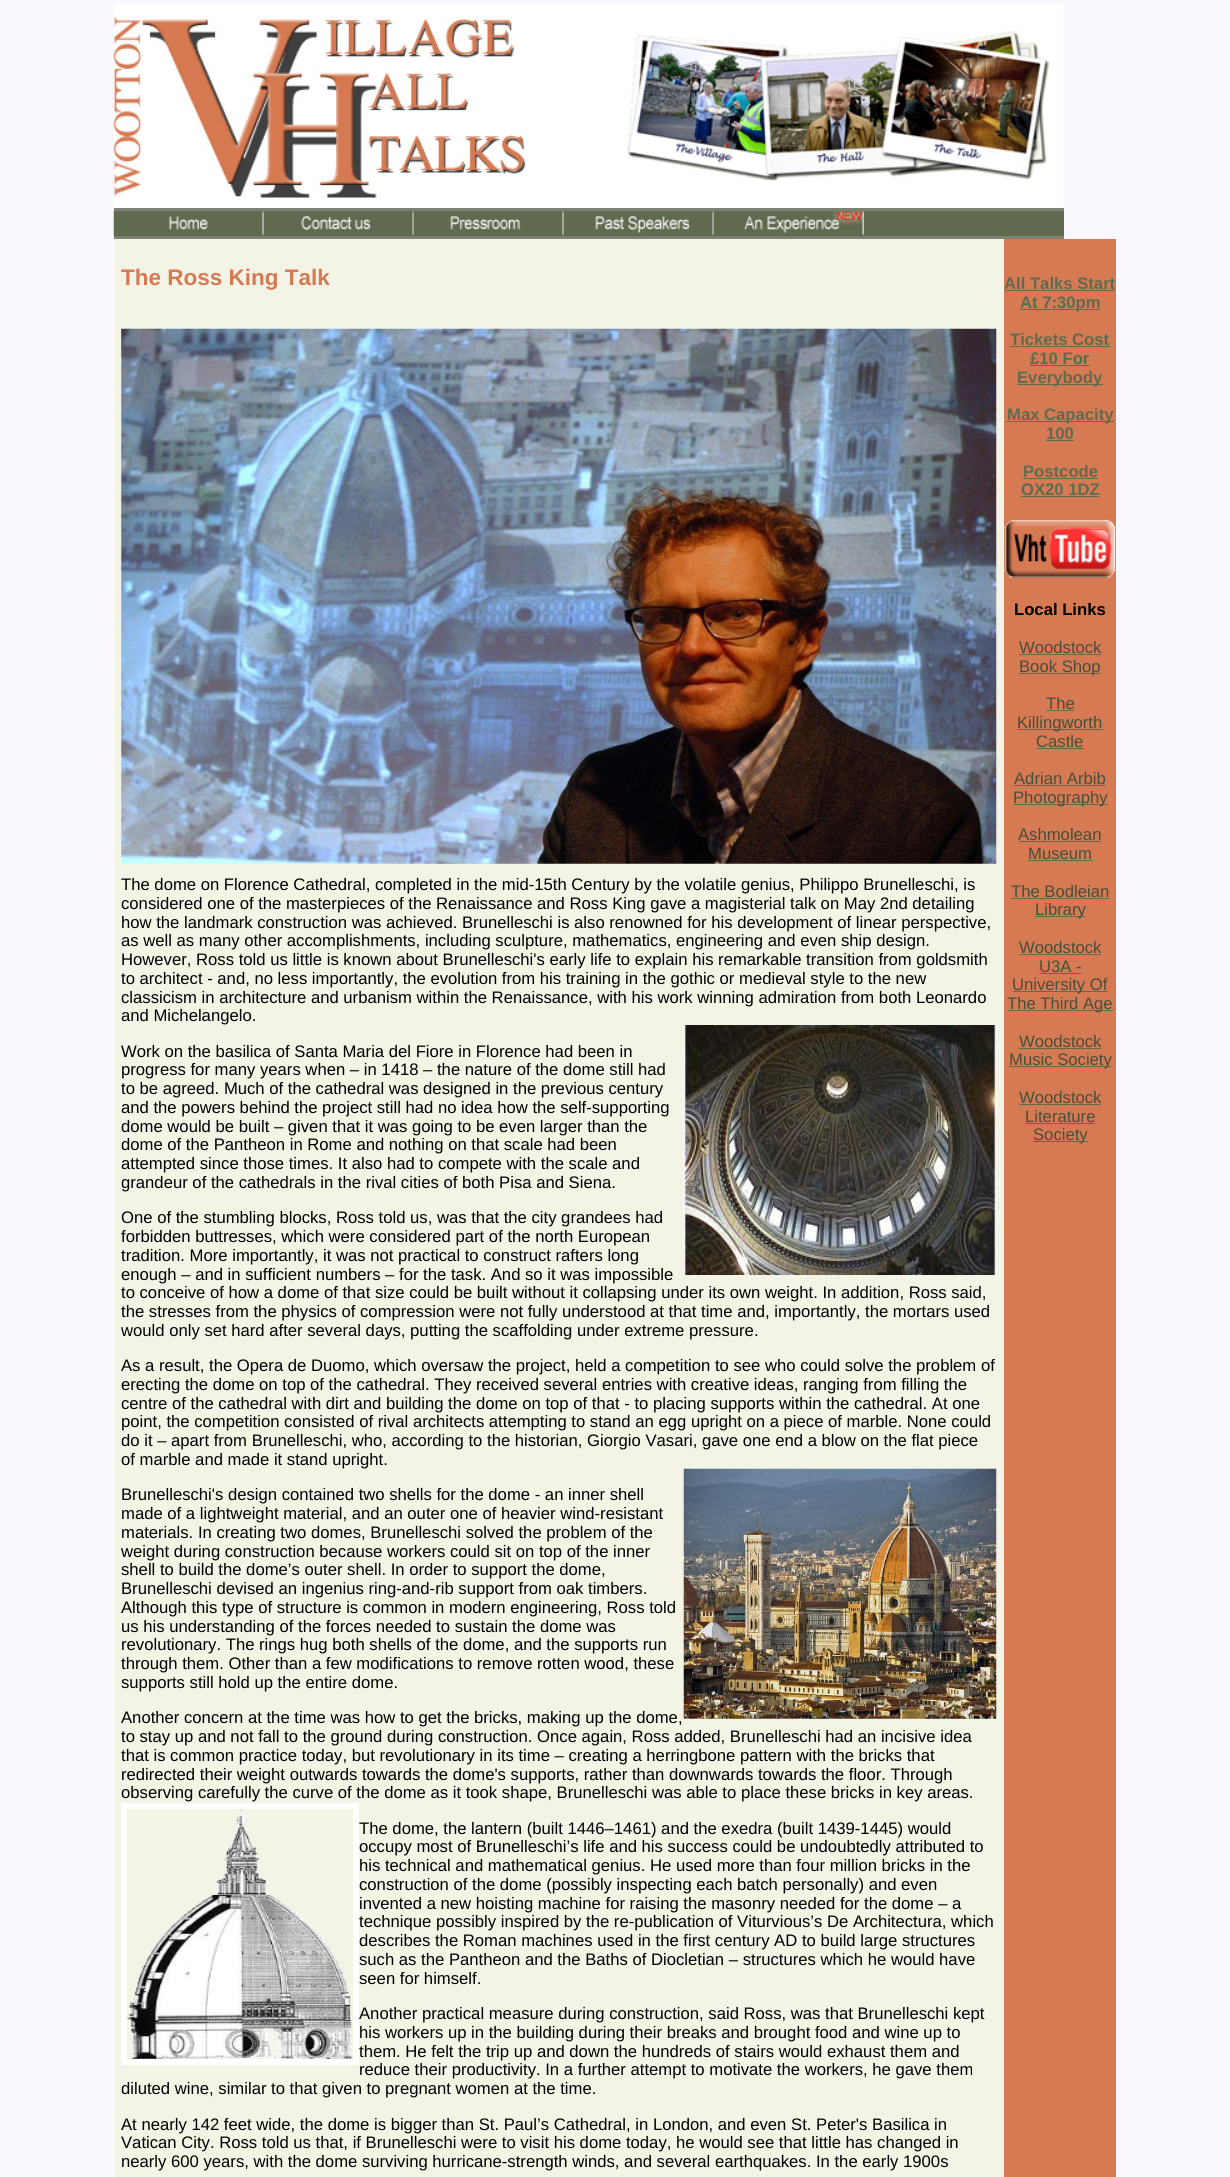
import math
import cairo


def use_color(cr, r, g, b):
  cr.set_source_rgb(r / 255, g / 255, b / 255)

def text(cr, x, y, s, family, size, color, bold=False, italic=False):
  cr.select_font_face(family, cairo.FONT_SLANT_ITALIC if italic else cairo.FONT_SLANT_NORMAL, cairo.FONT_WEIGHT_BOLD if bold else cairo.FONT_WEIGHT_NORMAL)
  cr.set_font_size(size)
  use_color(cr, *color)
  cr.move_to(x, y)
  cr.show_text(s)

def box(cr, x, y, w, h, *color):
  use_color(cr, *color)
  cr.rectangle(x, y, w, h)
  cr.fill()

def picture(cr, path, x, y, w, h):
  cr.save()
  cr.set_source_surface(cairo.ImageSurface.create_from_png(path), x, y)
  cr.rectangle(x, y, w, h)
  cr.fill()
  cr.restore()

def draw(cr):
  use_color(cr, 250, 247, 255)
  cr.paint()
  box(cr, 114, 4, 950, 204, 255, 255, 255)
  picture(cr, "img_01.png", 113, 14, 937, 184)
  box(cr, 114, 208, 950, 31, 125, 131, 114)
  box(cr, 114, 211, 950, 25, 96, 106, 79)
  picture(cr, "img_02.png", 113, 211, 151, 26)
  picture(cr, "img_03.png", 263, 211, 151, 26)
  picture(cr, "img_04.png", 413, 211, 151, 26)
  picture(cr, "img_05.png", 563, 211, 151, 26)
  picture(cr, "img_06.png", 713, 211, 151, 26)
  box(cr, 114, 239, 890, 1938, 243, 243, 230)
  picture(cr, "img_07.png", 121, 328, 876, 536)
  picture(cr, "img_08.png", 683, 1025, 314, 250)
  picture(cr, "img_09.png", 683, 1468, 314, 251)
  cr.rectangle(124, 1806, 232, 256)
  use_color(cr, 255, 255, 255)
  cr.set_line_width(6)
  cr.stroke()
  picture(cr, "img_10.png", 127, 1808, 226, 251)
  box(cr, 1004, 239, 112, 1938, 213, 122, 82)
  box(cr, 1005, 290, 110, 1, 96, 106, 79)
  box(cr, 1020, 309, 80, 1, 96, 106, 79)
  box(cr, 1010, 346, 100, 1, 96, 106, 79)
  box(cr, 1030, 365, 60, 1, 96, 106, 79)
  box(cr, 1018, 384, 85, 1, 96, 106, 79)
  box(cr, 1006, 421, 108, 1, 96, 106, 79)
  box(cr, 1046, 440, 28, 1, 96, 106, 79)
  box(cr, 1023, 478, 75, 1, 96, 106, 79)
  box(cr, 1021, 496, 78, 1, 96, 106, 79)
  picture(cr, "img_11.png", 1004, 519, 112, 59)
  box(cr, 1019, 654, 82, 1, 96, 106, 79)
  box(cr, 1019, 673, 82, 1, 96, 106, 79)
  box(cr, 1046, 710, 28, 1, 96, 106, 79)
  box(cr, 1018, 729, 85, 1, 96, 106, 79)
  box(cr, 1036, 748, 48, 1, 96, 106, 79)
  box(cr, 1014, 785, 92, 1, 96, 106, 79)
  box(cr, 1013, 804, 95, 1, 96, 106, 79)
  box(cr, 1019, 841, 82, 1, 96, 106, 79)
  box(cr, 1028, 860, 65, 1, 96, 106, 79)
  box(cr, 1011, 898, 98, 1, 96, 106, 79)
  box(cr, 1035, 916, 50, 1, 96, 106, 79)
  box(cr, 1019, 954, 82, 1, 96, 106, 79)
  box(cr, 1039, 973, 42, 1, 96, 106, 79)
  box(cr, 1013, 991, 95, 1, 96, 106, 79)
  box(cr, 1008, 1010, 105, 1, 96, 106, 79)
  box(cr, 1019, 1048, 82, 1, 96, 106, 79)
  box(cr, 1009, 1066, 102, 1, 96, 106, 79)
  box(cr, 1019, 1104, 82, 1, 96, 106, 79)
  box(cr, 1025, 1123, 70, 1, 96, 106, 79)
  box(cr, 1033, 1141, 55, 1, 96, 106, 79)
  text(cr, 121, 285, "The Ross King Talk", "Liberation Sans", 22.5, (213, 122, 82), bold=True)
  text(cr, 121, 890, "The dome on Florence Cathedral, completed in the mid-15th Century by the volatile genius, Philippo Brunelleschi, is", "Liberation Sans", 16.67, (0, 0, 0))
  text(cr, 121, 909, "considered one of the masterpieces of the Renaissance and Ross King gave a magisterial talk on May 2nd detailing", "Liberation Sans", 16.67, (0, 0, 0))
  text(cr, 121, 928, "how the landmark construction was achieved. Brunelleschi is also renowned for his development of linear perspective,", "Liberation Sans", 16.67, (0, 0, 0))
  text(cr, 121, 946, "as well as many other accomplishments, including sculpture, mathematics, engineering and even ship design.", "Liberation Sans", 16.67, (0, 0, 0))
  text(cr, 121, 965, "However, Ross told us little is known about Brunelleschi's early life to explain his remarkable transition from goldsmith", "Liberation Sans", 16.67, (0, 0, 0))
  text(cr, 121, 984, "to architect - and, no less importantly, the evolution from his training in the gothic or medieval style to the new", "Liberation Sans", 16.67, (0, 0, 0))
  text(cr, 121, 1003, "classicism in architecture and urbanism within the Renaissance, with his work winning admiration from both Leonardo", "Liberation Sans", 16.67, (0, 0, 0))
  text(cr, 121, 1021, "and Michelangelo.", "Liberation Sans", 16.67, (0, 0, 0))
  text(cr, 121, 1057, "Work on the basilica of Santa Maria del Fiore in Florence had been in", "Liberation Sans", 16.67, (0, 0, 0))
  text(cr, 121, 1075, "progress for many years when – in 1418 – the nature of the dome still had", "Liberation Sans", 16.67, (0, 0, 0))
  text(cr, 121, 1094, "to be agreed. Much of the cathedral was designed in the previous century", "Liberation Sans", 16.67, (0, 0, 0))
  text(cr, 121, 1113, "and the powers behind the project still had no idea how the self-supporting", "Liberation Sans", 16.67, (0, 0, 0))
  text(cr, 121, 1132, "dome would be built – given that it was going to be even larger than the", "Liberation Sans", 16.67, (0, 0, 0))
  text(cr, 121, 1150, "dome of the Pantheon in Rome and nothing on that scale had been", "Liberation Sans", 16.67, (0, 0, 0))
  text(cr, 121, 1169, "attempted since those times. It also had to compete with the scale and", "Liberation Sans", 16.67, (0, 0, 0))
  text(cr, 121, 1188, "grandeur of the cathedrals in the rival cities of both Pisa and Siena.", "Liberation Sans", 16.67, (0, 0, 0))
  text(cr, 121, 1223, "One of the stumbling blocks, Ross told us, was that the city grandees had", "Liberation Sans", 16.67, (0, 0, 0))
  text(cr, 121, 1242, "forbidden buttresses, which were considered part of the north European", "Liberation Sans", 16.67, (0, 0, 0))
  text(cr, 121, 1261, "tradition. More importantly, it was not practical to construct rafters long", "Liberation Sans", 16.67, (0, 0, 0))
  text(cr, 121, 1280, "enough – and in sufficient numbers – for the task. And so it was impossible", "Liberation Sans", 16.67, (0, 0, 0))
  text(cr, 121, 1298, "to conceive of how a dome of that size could be built without it collapsing under its own weight. In addition, Ross said,", "Liberation Sans", 16.67, (0, 0, 0))
  text(cr, 121, 1317, "the stresses from the physics of compression were not fully understood at that time and, importantly, the mortars used", "Liberation Sans", 16.67, (0, 0, 0))
  text(cr, 121, 1336, "would only set hard after several days, putting the scaffolding under extreme pressure.", "Liberation Sans", 16.67, (0, 0, 0))
  text(cr, 121, 1371, "As a result, the Opera de Duomo, which oversaw the project, held a competition to see who could solve the problem of", "Liberation Sans", 16.67, (0, 0, 0))
  text(cr, 121, 1390, "erecting the dome on top of the cathedral. They received several entries with creative ideas, ranging from filling the", "Liberation Sans", 16.67, (0, 0, 0))
  text(cr, 121, 1409, "centre of the cathedral with dirt and building the dome on top of that - to placing supports within the cathedral. At one", "Liberation Sans", 16.67, (0, 0, 0))
  text(cr, 121, 1427, "point, the competition consisted of rival architects attempting to stand an egg upright on a piece of marble. None could", "Liberation Sans", 16.67, (0, 0, 0))
  text(cr, 121, 1446, "do it – apart from Brunelleschi, who, according to the historian, Giorgio Vasari, gave one end a blow on the flat piece", "Liberation Sans", 16.67, (0, 0, 0))
  text(cr, 121, 1465, "of marble and made it stand upright.", "Liberation Sans", 16.67, (0, 0, 0))
  text(cr, 121, 1500, "Brunelleschi's design contained two shells for the dome - an inner shell", "Liberation Sans", 16.67, (0, 0, 0))
  text(cr, 121, 1519, "made of a lightweight material, and an outer one of heavier wind-resistant", "Liberation Sans", 16.67, (0, 0, 0))
  text(cr, 121, 1538, "materials. In creating two domes, Brunelleschi solved the problem of the", "Liberation Sans", 16.67, (0, 0, 0))
  text(cr, 121, 1557, "weight during construction because workers could sit on top of the inner", "Liberation Sans", 16.67, (0, 0, 0))
  text(cr, 121, 1575, "shell to build the dome’s outer shell. In order to support the dome,", "Liberation Sans", 16.67, (0, 0, 0))
  text(cr, 121, 1594, "Brunelleschi devised an ingenius ring-and-rib support from oak timbers.", "Liberation Sans", 16.67, (0, 0, 0))
  text(cr, 121, 1613, "Although this type of structure is common in modern engineering, Ross told", "Liberation Sans", 16.67, (0, 0, 0))
  text(cr, 121, 1632, "us his understanding of the forces needed to sustain the dome was", "Liberation Sans", 16.67, (0, 0, 0))
  text(cr, 121, 1650, "revolutionary. The rings hug both shells of the dome, and the supports run", "Liberation Sans", 16.67, (0, 0, 0))
  text(cr, 121, 1669, "through them. Other than a few modifications to remove rotten wood, these", "Liberation Sans", 16.67, (0, 0, 0))
  text(cr, 121, 1688, "supports still hold up the entire dome.", "Liberation Sans", 16.67, (0, 0, 0))
  text(cr, 121, 1723, "Another concern at the time was how to get the bricks, making up the dome,", "Liberation Sans", 16.67, (0, 0, 0))
  text(cr, 121, 1742, "to stay up and not fall to the ground during construction. Once again, Ross added, Brunelleschi had an incisive idea", "Liberation Sans", 16.67, (0, 0, 0))
  text(cr, 121, 1761, "that is common practice today, but revolutionary in its time – creating a herringbone pattern with the bricks that", "Liberation Sans", 16.67, (0, 0, 0))
  text(cr, 121, 1780, "redirected their weight outwards towards the dome's supports, rather than downwards towards the floor. Through", "Liberation Sans", 16.67, (0, 0, 0))
  text(cr, 121, 1798, "observing carefully the curve of the dome as it took shape, Brunelleschi was able to place these bricks in key areas.", "Liberation Sans", 16.67, (0, 0, 0))
  text(cr, 359, 1834, "The dome, the lantern (built 1446–1461) and the exedra (built 1439-1445) would", "Liberation Sans", 16.67, (0, 0, 0))
  text(cr, 359, 1852, "occupy most of Brunelleschi’s life and his success could be undoubtedly attributed to", "Liberation Sans", 16.67, (0, 0, 0))
  text(cr, 359, 1871, "his technical and mathematical genius. He used more than four million bricks in the", "Liberation Sans", 16.67, (0, 0, 0))
  text(cr, 359, 1890, "construction of the dome (possibly inspecting each batch personally) and even", "Liberation Sans", 16.67, (0, 0, 0))
  text(cr, 359, 1909, "invented a new hoisting machine for raising the masonry needed for the dome – a", "Liberation Sans", 16.67, (0, 0, 0))
  text(cr, 359, 1927, "technique possibly inspired by the re-publication of Viturvious’s De Architectura, which", "Liberation Sans", 16.67, (0, 0, 0))
  text(cr, 359, 1946, "describes the Roman machines used in the first century AD to build large structures", "Liberation Sans", 16.67, (0, 0, 0))
  text(cr, 359, 1965, "such as the Pantheon and the Baths of Diocletian – structures which he would have", "Liberation Sans", 16.67, (0, 0, 0))
  text(cr, 359, 1984, "seen for himself.", "Liberation Sans", 16.67, (0, 0, 0))
  text(cr, 359, 2019, "Another practical measure during construction, said Ross, was that Brunelleschi kept", "Liberation Sans", 16.67, (0, 0, 0))
  text(cr, 359, 2038, "his workers up in the building during their breaks and brought food and wine up to", "Liberation Sans", 16.67, (0, 0, 0))
  text(cr, 359, 2057, "them. He felt the trip up and down the hundreds of stairs would exhaust them and", "Liberation Sans", 16.67, (0, 0, 0))
  text(cr, 359, 2075, "reduce their productivity. In a further attempt to motivate the workers, he gave them", "Liberation Sans", 16.67, (0, 0, 0))
  text(cr, 121, 2094, "diluted wine, similar to that given to pregnant women at the time.", "Liberation Sans", 16.67, (0, 0, 0))
  text(cr, 121, 2130, "At nearly 142 feet wide, the dome is bigger than St. Paul’s Cathedral, in London, and even St. Peter's Basilica in", "Liberation Sans", 16.67, (0, 0, 0))
  text(cr, 121, 2148, "Vatican City. Ross told us that, if Brunelleschi were to visit his dome today, he would see that little has changed in", "Liberation Sans", 16.67, (0, 0, 0))
  text(cr, 121, 2167, "nearly 600 years, with the dome surviving hurricane-strength winds, and several earthquakes. In the early 1900s", "Liberation Sans", 16.67, (0, 0, 0))
  text(cr, 1004, 289, "All Talks Start", "Liberation Sans", 16.67, (96, 106, 79), bold=True)
  text(cr, 1020, 308, "At 7:30pm", "Liberation Sans", 16.67, (96, 106, 79), bold=True)
  text(cr, 1010, 345, "Tickets Cost", "Liberation Sans", 16.67, (96, 106, 79), bold=True)
  text(cr, 1030, 364, "£10 For", "Liberation Sans", 16.67, (96, 106, 79), bold=True)
  text(cr, 1017, 383, "Everybody", "Liberation Sans", 16.67, (96, 106, 79), bold=True)
  text(cr, 1007, 420, "Max Capacity", "Liberation Sans", 16.67, (96, 106, 79), bold=True)
  text(cr, 1046, 439, "100", "Liberation Sans", 16.67, (96, 106, 79), bold=True)
  text(cr, 1023, 477, "Postcode", "Liberation Sans", 16.67, (96, 106, 79), bold=True)
  text(cr, 1021, 495, "OX20 1DZ", "Liberation Sans", 16.67, (96, 106, 79), bold=True)
  text(cr, 1014, 615, "Local Links", "Liberation Sans", 16.67, (0, 0, 0), bold=True)
  text(cr, 1019, 653, "Woodstock", "Liberation Sans", 16.67, (71, 78, 59))
  text(cr, 1019, 672, "Book Shop", "Liberation Sans", 16.67, (71, 78, 59))
  text(cr, 1046, 709, "The", "Liberation Sans", 16.67, (71, 78, 59))
  text(cr, 1017, 728, "Killingworth", "Liberation Sans", 16.67, (71, 78, 59))
  text(cr, 1036, 747, "Castle", "Liberation Sans", 16.67, (71, 78, 59))
  text(cr, 1014, 784, "Adrian Arbib", "Liberation Sans", 16.67, (71, 78, 59))
  text(cr, 1013, 803, "Photography", "Liberation Sans", 16.67, (71, 78, 59))
  text(cr, 1018, 840, "Ashmolean", "Liberation Sans", 16.67, (71, 78, 59))
  text(cr, 1028, 859, "Museum", "Liberation Sans", 16.67, (71, 78, 59))
  text(cr, 1011, 897, "The Bodleian", "Liberation Sans", 16.67, (71, 78, 59))
  text(cr, 1035, 915, "Library", "Liberation Sans", 16.67, (71, 78, 59))
  text(cr, 1019, 953, "Woodstock", "Liberation Sans", 16.67, (71, 78, 59))
  text(cr, 1039, 972, "U3A -", "Liberation Sans", 16.67, (71, 78, 59))
  text(cr, 1012, 990, "University Of", "Liberation Sans", 16.67, (71, 78, 59))
  text(cr, 1007, 1009, "The Third Age", "Liberation Sans", 16.67, (71, 78, 59))
  text(cr, 1019, 1047, "Woodstock", "Liberation Sans", 16.67, (71, 78, 59))
  text(cr, 1009, 1065, "Music Society", "Liberation Sans", 16.67, (71, 78, 59))
  text(cr, 1019, 1103, "Woodstock", "Liberation Sans", 16.67, (71, 78, 59))
  text(cr, 1025, 1122, "Literature", "Liberation Sans", 16.67, (71, 78, 59))
  text(cr, 1033, 1140, "Society", "Liberation Sans", 16.67, (71, 78, 59))


surface = cairo.ImageSurface(cairo.FORMAT_RGB24, 1230, 2177)
cr = cairo.Context(surface)
options = cairo.FontOptions()
options.set_hint_metrics(cairo.HINT_METRICS_OFF)
options.set_hint_style(cairo.HINT_STYLE_NONE)
cr.set_font_options(options)
cr.set_miter_limit(4)
draw(cr)
surface.write_to_png("out.png")
